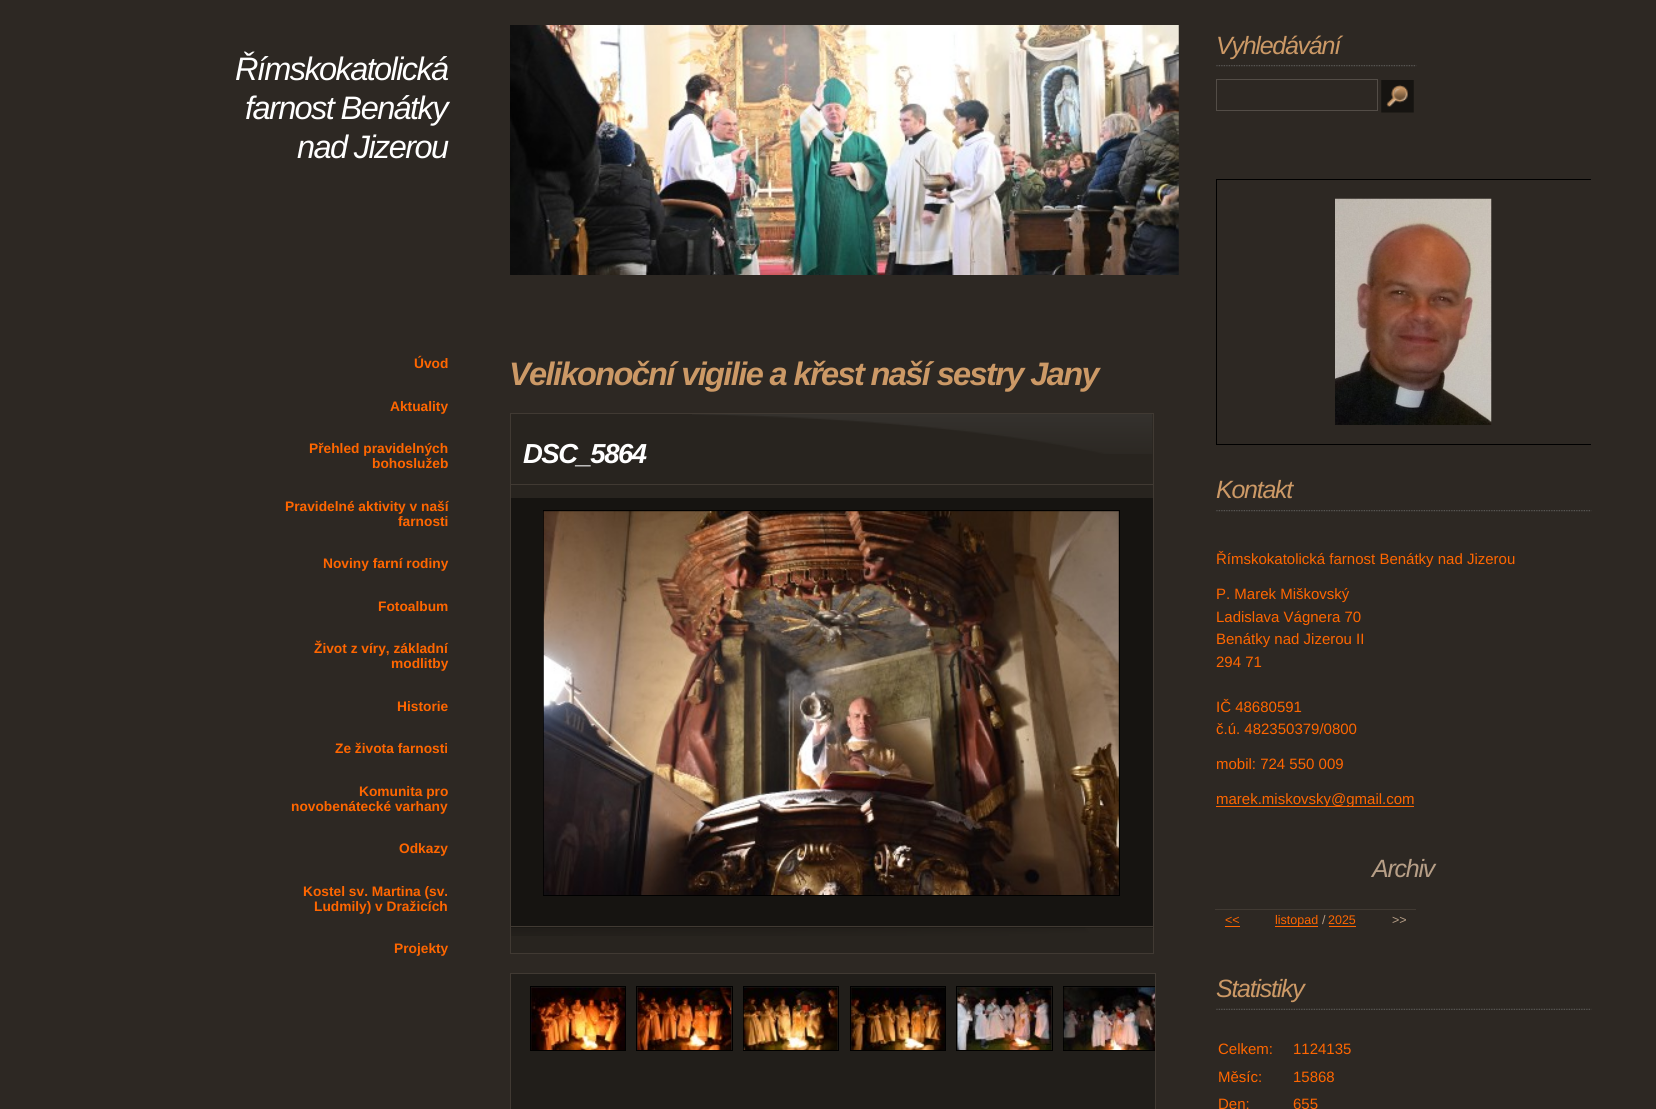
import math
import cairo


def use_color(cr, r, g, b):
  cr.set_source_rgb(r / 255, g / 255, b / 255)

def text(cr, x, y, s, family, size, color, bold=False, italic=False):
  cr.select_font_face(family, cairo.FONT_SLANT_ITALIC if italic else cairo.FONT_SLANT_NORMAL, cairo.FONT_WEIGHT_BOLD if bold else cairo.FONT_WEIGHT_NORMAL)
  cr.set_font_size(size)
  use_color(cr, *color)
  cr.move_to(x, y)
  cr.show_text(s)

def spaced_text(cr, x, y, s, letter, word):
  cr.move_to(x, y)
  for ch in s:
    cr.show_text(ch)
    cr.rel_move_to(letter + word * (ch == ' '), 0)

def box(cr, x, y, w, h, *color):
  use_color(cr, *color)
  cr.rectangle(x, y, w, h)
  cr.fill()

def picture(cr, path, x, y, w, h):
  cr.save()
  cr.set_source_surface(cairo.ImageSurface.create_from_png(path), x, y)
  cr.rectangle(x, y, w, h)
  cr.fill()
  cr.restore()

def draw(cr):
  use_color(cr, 45, 40, 35)
  cr.paint()
  picture(cr, "img_01.png", 510, 25, 669, 250)
  box(cr, 511, 414, 642, 539, 40, 36, 31)
  picture(cr, "img_02.png", 692, 414, 461, 40)
  cr.rectangle(510.5, 413.5, 643, 540)
  use_color(cr, 65, 58, 51)
  cr.set_line_width(1)
  cr.stroke()
  box(cr, 511, 484, 642, 1, 65, 58, 51)
  box(cr, 511, 498, 642, 430, 22, 20, 17)
  box(cr, 511, 926, 642, 1, 65, 58, 51)
  cr.rectangle(543.5, 510.5, 576, 385)
  use_color(cr, 0, 0, 0)
  cr.stroke()
  picture(cr, "img_03.png", 543, 511, 576, 384)
  picture(cr, "img_04.png", 511, 927, 642, 9)
  use_color(cr, 33, 30, 26)
  cr.rectangle(510.5, 973.5, 645, 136)
  cr.fill_preserve()
  use_color(cr, 65, 58, 51)
  cr.stroke()
  cr.rectangle(530.5, 986.5, 95, 64)
  use_color(cr, 0, 0, 0)
  cr.stroke()
  cr.rectangle(636.5, 986.5, 96, 64)
  cr.stroke()
  cr.rectangle(743.5, 986.5, 95, 64)
  cr.stroke()
  cr.rectangle(850.5, 986.5, 95, 64)
  cr.stroke()
  cr.rectangle(956.5, 986.5, 96, 64)
  cr.stroke()
  cr.save()
  cr.rectangle(511, 974, 644, 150)
  cr.clip()
  cr.rectangle(1063.5, 986.5, 95, 64)
  cr.stroke()
  cr.restore()
  picture(cr, "img_05.png", 531, 987, 94, 63)
  picture(cr, "img_06.png", 637, 987, 95, 63)
  picture(cr, "img_07.png", 743, 987, 95, 63)
  picture(cr, "img_08.png", 851, 987, 94, 63)
  picture(cr, "img_09.png", 957, 987, 95, 63)
  picture(cr, "img_10.png", 1063, 987, 92, 63)
  picture(cr, "img_11.png", 1216, 65, 201, 2)
  cr.rectangle(1216.5, 79.5, 161, 31)
  use_color(cr, 83, 77, 71)
  cr.stroke()
  picture(cr, "img_12.png", 1381, 80, 33, 33)
  cr.save()
  cr.rectangle(1204, 166, 387, 279)
  cr.clip()
  cr.rectangle(1216.5, 179.5, 393, 265)
  use_color(cr, 0, 0, 0)
  cr.stroke()
  cr.restore()
  picture(cr, "img_13.png", 1335, 198, 157, 227)
  picture(cr, "img_14.png", 1216, 510, 376, 2)
  box(cr, 1216, 806, 198, 1, 255, 102, 0)
  box(cr, 1225, 926, 15, 1, 255, 102, 0)
  box(cr, 1275, 926, 43, 1, 255, 102, 0)
  box(cr, 1329, 926, 27, 1, 255, 102, 0)
  box(cr, 1215, 909, 201, 1, 65, 58, 51)
  picture(cr, "img_15.png", 1216, 1008, 376, 2)
  cr.select_font_face("Liberation Sans", cairo.FONT_SLANT_ITALIC)
  cr.set_font_size(32.5)
  use_color(cr, 255, 255, 255)
  spaced_text(cr, 235, 80, "Římskokatolická", -1.6, 0)
  spaced_text(cr, 245, 119, "farnost Benátky", -1.6, 0)
  spaced_text(cr, 297, 158, "nad Jizerou", -1.6, 0)
  text(cr, 414, 368, "Úvod", "Liberation Sans", 13.75, (255, 102, 0), bold=True)
  text(cr, 390, 411, "Aktuality", "Liberation Sans", 13.75, (255, 102, 0), bold=True)
  text(cr, 309, 453, "Přehled pravidelných", "Liberation Sans", 13.75, (255, 102, 0), bold=True)
  text(cr, 372, 468, "bohoslužeb", "Liberation Sans", 13.75, (255, 102, 0), bold=True)
  text(cr, 285, 511, "Pravidelné aktivity v naší", "Liberation Sans", 13.75, (255, 102, 0), bold=True)
  text(cr, 398, 526, "farnosti", "Liberation Sans", 13.75, (255, 102, 0), bold=True)
  text(cr, 323, 568, "Noviny farní rodiny", "Liberation Sans", 13.75, (255, 102, 0), bold=True)
  text(cr, 378, 611, "Fotoalbum", "Liberation Sans", 13.75, (255, 102, 0), bold=True)
  text(cr, 314, 653, "Život z víry, základní", "Liberation Sans", 13.75, (255, 102, 0), bold=True)
  text(cr, 391, 668, "modlitby", "Liberation Sans", 13.75, (255, 102, 0), bold=True)
  text(cr, 397, 711, "Historie", "Liberation Sans", 13.75, (255, 102, 0), bold=True)
  text(cr, 335, 753, "Ze života farnosti", "Liberation Sans", 13.75, (255, 102, 0), bold=True)
  text(cr, 359, 796, "Komunita pro", "Liberation Sans", 13.75, (255, 102, 0), bold=True)
  text(cr, 291, 811, "novobenátecké varhany", "Liberation Sans", 13.75, (255, 102, 0), bold=True)
  text(cr, 399, 853, "Odkazy", "Liberation Sans", 13.75, (255, 102, 0), bold=True)
  text(cr, 303, 896, "Kostel sv. Martina (sv.", "Liberation Sans", 13.75, (255, 102, 0), bold=True)
  text(cr, 314, 911, "Ludmily) v Dražicích", "Liberation Sans", 13.75, (255, 102, 0), bold=True)
  text(cr, 394, 953, "Projekty", "Liberation Sans", 13.75, (255, 102, 0), bold=True)
  cr.select_font_face("Liberation Sans", cairo.FONT_SLANT_ITALIC, cairo.FONT_WEIGHT_BOLD)
  cr.set_font_size(32.5)
  use_color(cr, 204, 153, 102)
  spaced_text(cr, 509, 385, "Velikonoční vigilie a křest naší sestry Jany", -1.6, 0)
  cr.set_font_size(27.5)
  use_color(cr, 255, 255, 255)
  spaced_text(cr, 523, 463, "DSC_5864", -1.5, 0)
  cr.select_font_face("Liberation Sans", cairo.FONT_SLANT_ITALIC)
  cr.set_font_size(25)
  use_color(cr, 204, 153, 102)
  spaced_text(cr, 1216, 54, "Vyhledávání", -1.25, 0)
  spaced_text(cr, 1216, 498, "Kontakt", -1.25, 0)
  text(cr, 1216, 564, "Římskokatolická farnost Benátky nad Jizerou", "Liberation Sans", 15, (255, 102, 0))
  text(cr, 1216, 599, "P. Marek Miškovský", "Liberation Sans", 15, (255, 102, 0))
  text(cr, 1216, 622, "Ladislava Vágnera 70", "Liberation Sans", 15, (255, 102, 0))
  text(cr, 1216, 644, "Benátky nad Jizerou II", "Liberation Sans", 15, (255, 102, 0))
  text(cr, 1216, 667, "294 71", "Liberation Sans", 15, (255, 102, 0))
  text(cr, 1216, 712, "IČ 48680591", "Liberation Sans", 15, (255, 102, 0))
  text(cr, 1216, 734, "č.ú. 482350379/0800", "Liberation Sans", 15, (255, 102, 0))
  text(cr, 1216, 769, "mobil: 724 550 009", "Liberation Sans", 15, (255, 102, 0))
  text(cr, 1216, 804, "marek.miskovsky@gmail.com", "Liberation Sans", 15, (255, 102, 0))
  cr.select_font_face("Liberation Sans", cairo.FONT_SLANT_ITALIC)
  cr.set_font_size(25)
  use_color(cr, 183, 159, 135)
  spaced_text(cr, 1372, 877, "Archiv", -1.25, 0)
  text(cr, 1225, 924, "<<", "Liberation Sans", 12.5, (255, 102, 0))
  text(cr, 1275, 924, "listopad", "Liberation Sans", 12.5, (255, 102, 0))
  text(cr, 1322, 924, "/", "Liberation Sans", 12.5, (183, 159, 135))
  text(cr, 1328, 924, "2025", "Liberation Sans", 12.5, (255, 102, 0))
  text(cr, 1392, 924, ">>", "Liberation Sans", 12.5, (183, 159, 135))
  cr.select_font_face("Liberation Sans", cairo.FONT_SLANT_ITALIC)
  cr.set_font_size(25)
  use_color(cr, 204, 153, 102)
  spaced_text(cr, 1216, 997, "Statistiky", -1.25, 0)
  text(cr, 1218, 1054, "Celkem:", "Liberation Sans", 15, (255, 102, 0))
  text(cr, 1293, 1054, "1124135", "Liberation Sans", 15, (255, 102, 0))
  text(cr, 1218, 1082, "Měsíc:", "Liberation Sans", 15, (255, 102, 0))
  text(cr, 1293, 1082, "15868", "Liberation Sans", 15, (255, 102, 0))
  text(cr, 1218, 1109, "Den:", "Liberation Sans", 15, (255, 102, 0))
  text(cr, 1293, 1109, "655", "Liberation Sans", 15, (255, 102, 0))


surface = cairo.ImageSurface(cairo.FORMAT_RGB24, 1656, 1109)
cr = cairo.Context(surface)
options = cairo.FontOptions()
options.set_hint_metrics(cairo.HINT_METRICS_OFF)
options.set_hint_style(cairo.HINT_STYLE_NONE)
cr.set_font_options(options)
cr.set_miter_limit(4)
draw(cr)
surface.write_to_png("out.png")
